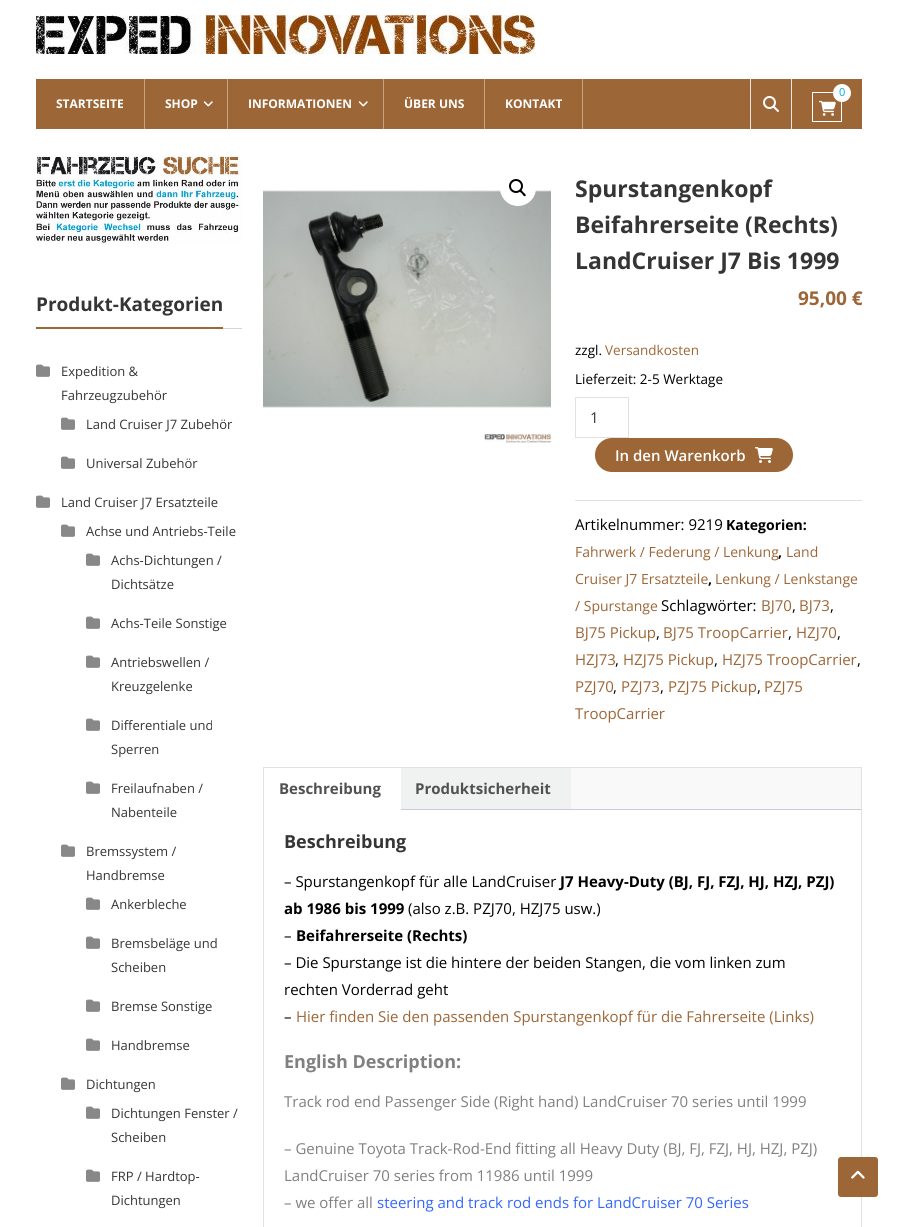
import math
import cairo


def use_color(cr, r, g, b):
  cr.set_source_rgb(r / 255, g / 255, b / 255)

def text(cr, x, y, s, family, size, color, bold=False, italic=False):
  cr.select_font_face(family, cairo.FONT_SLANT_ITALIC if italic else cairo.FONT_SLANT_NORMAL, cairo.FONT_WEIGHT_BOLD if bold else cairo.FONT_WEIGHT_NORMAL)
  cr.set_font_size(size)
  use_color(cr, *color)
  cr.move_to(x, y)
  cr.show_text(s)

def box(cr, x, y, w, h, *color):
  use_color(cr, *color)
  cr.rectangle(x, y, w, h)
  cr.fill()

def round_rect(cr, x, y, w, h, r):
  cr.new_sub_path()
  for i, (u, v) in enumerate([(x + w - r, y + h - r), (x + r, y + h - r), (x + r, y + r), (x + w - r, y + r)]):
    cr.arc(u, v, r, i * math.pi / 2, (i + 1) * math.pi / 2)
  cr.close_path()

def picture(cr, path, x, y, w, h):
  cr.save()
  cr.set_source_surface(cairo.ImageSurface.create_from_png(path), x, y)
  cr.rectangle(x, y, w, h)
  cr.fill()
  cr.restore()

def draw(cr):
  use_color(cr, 255, 255, 255)
  cr.paint()
  picture(cr, "img_01.png", 36, 15, 499, 39)
  box(cr, 36, 79, 826, 50, 157, 102, 55)
  box(cr, 791, 79, 1, 50, 229, 229, 229)
  box(cr, 750, 79, 1, 50, 229, 229, 229)
  picture(cr, "img_02.png", 763, 96, 16, 16)
  cr.rectangle(812.5, 92.5, 29, 29)
  use_color(cr, 255, 255, 255)
  cr.set_line_width(1)
  cr.stroke()
  picture(cr, "img_03.png", 819, 100, 17, 16)
  cr.arc(842, 93, 9, 0, 2 * math.pi)
  cr.fill()
  box(cr, 144, 79, 1, 50, 196, 163, 135)
  box(cr, 227, 79, 1, 50, 196, 163, 135)
  picture(cr, "img_04.png", 203, 101, 10, 6)
  box(cr, 383, 79, 1, 50, 196, 163, 135)
  picture(cr, "img_04.png", 358, 101, 10, 6)
  box(cr, 484, 79, 1, 50, 196, 163, 135)
  box(cr, 582, 79, 1, 50, 196, 163, 135)
  picture(cr, "img_05.png", 36, 155, 206, 89)
  box(cr, 223, 328, 19, 1, 214, 214, 214)
  box(cr, 36, 327, 187, 2, 157, 102, 55)
  picture(cr, "img_06.png", 36, 364, 14, 13)
  picture(cr, "img_06.png", 61, 417, 14, 13)
  picture(cr, "img_06.png", 61, 456, 14, 13)
  picture(cr, "img_06.png", 36, 495, 14, 13)
  picture(cr, "img_06.png", 61, 524, 14, 13)
  picture(cr, "img_06.png", 86, 553, 14, 13)
  picture(cr, "img_06.png", 86, 616, 14, 13)
  picture(cr, "img_06.png", 86, 655, 14, 13)
  picture(cr, "img_06.png", 86, 718, 14, 13)
  picture(cr, "img_06.png", 86, 781, 14, 13)
  picture(cr, "img_06.png", 61, 844, 14, 13)
  picture(cr, "img_06.png", 86, 897, 14, 13)
  picture(cr, "img_06.png", 86, 936, 14, 13)
  picture(cr, "img_06.png", 86, 999, 14, 13)
  picture(cr, "img_06.png", 86, 1038, 14, 13)
  picture(cr, "img_06.png", 61, 1077, 14, 13)
  picture(cr, "img_06.png", 86, 1106, 14, 13)
  picture(cr, "img_06.png", 86, 1169, 14, 13)
  picture(cr, "img_07.png", 263, 190, 288, 253)
  use_color(cr, 255, 255, 255)
  cr.arc(518, 188, 18, 0, 2 * math.pi)
  cr.fill()
  cr.arc(516, 186, 6, 0, 2 * math.pi)
  use_color(cr, 0, 0, 0)
  cr.set_line_width(2)
  cr.stroke()
  cr.new_path()
  cr.move_to(520, 190)
  cr.curve_to(521, 189, 522.5, 191.5, 523.5, 192.5)
  cr.curve_to(524, 193, 526.5, 194.5, 525.5, 196)
  cr.curve_to(524, 197, 522.5, 194.5, 522, 193.5)
  cr.curve_to(521.5, 193, 518.5, 191.5, 520, 190)
  cr.close_path()
  cr.fill()
  cr.rectangle(575.5, 397.5, 53, 40)
  use_color(cr, 225, 225, 225)
  cr.set_line_width(1)
  cr.stroke()
  use_color(cr, 157, 102, 55)
  round_rect(cr, 595, 438, 198, 34, 17)
  cr.fill()
  picture(cr, "img_08.png", 755, 447, 18, 16)
  box(cr, 575, 500, 287, 1, 225, 225, 225)
  cr.rectangle(263.5, 767.5, 598, 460)
  cr.stroke()
  box(cr, 571, 768, 290, 41, 249, 249, 249)
  box(cr, 401, 768, 170, 41, 240, 242, 241)
  box(cr, 401, 809, 460, 1, 207, 200, 216)
  use_color(cr, 157, 102, 55)
  round_rect(cr, 838, 1157, 40, 40, 3)
  cr.fill()
  picture(cr, "img_09.png", 851, 1170, 14, 9)
  text(cr, 839, 96, "0", "Open Sans", 11, (0, 169, 224))
  text(cr, 56, 108, "STARTSEITE", "Open Sans", 12, (255, 255, 255), bold=True)
  text(cr, 165, 108, "SHOP", "Open Sans", 12, (255, 255, 255), bold=True)
  text(cr, 248, 108, "INFORMATIONEN", "Open Sans", 12, (255, 255, 255), bold=True)
  text(cr, 404, 108, "ÜBER UNS", "Open Sans", 12, (255, 255, 255), bold=True)
  text(cr, 505, 108, "KONTAKT", "Open Sans", 12, (255, 255, 255), bold=True)
  text(cr, 36, 311, "Produkt-Kategorien", "Open Sans", 19, (53, 53, 53), bold=True)
  text(cr, 61, 376, "Expedition &", "Open Sans", 13, (53, 53, 53))
  text(cr, 61, 400, "Fahrzeugzubehör", "Open Sans", 13, (53, 53, 53))
  text(cr, 86, 429, "Land Cruiser J7 Zubehör", "Open Sans", 13, (53, 53, 53))
  text(cr, 86, 468, "Universal Zubehör", "Open Sans", 13, (53, 53, 53))
  text(cr, 61, 507, "Land Cruiser J7 Ersatzteile", "Open Sans", 13, (53, 53, 53))
  text(cr, 86, 536, "Achse und Antriebs-Teile", "Open Sans", 13, (53, 53, 53))
  text(cr, 111, 565, "Achs-Dichtungen /", "Open Sans", 13, (53, 53, 53))
  text(cr, 111, 589, "Dichtsätze", "Open Sans", 13, (53, 53, 53))
  text(cr, 111, 628, "Achs-Teile Sonstige", "Open Sans", 13, (53, 53, 53))
  text(cr, 111, 667, "Antriebswellen /", "Open Sans", 13, (53, 53, 53))
  text(cr, 111, 691, "Kreuzgelenke", "Open Sans", 13, (53, 53, 53))
  text(cr, 111, 730, "Differentiale und", "Open Sans", 13, (53, 53, 53))
  text(cr, 111, 754, "Sperren", "Open Sans", 13, (53, 53, 53))
  text(cr, 111, 793, "Freilaufnaben /", "Open Sans", 13, (53, 53, 53))
  text(cr, 111, 817, "Nabenteile", "Open Sans", 13, (53, 53, 53))
  text(cr, 86, 856, "Bremssystem /", "Open Sans", 13, (53, 53, 53))
  text(cr, 86, 880, "Handbremse", "Open Sans", 13, (53, 53, 53))
  text(cr, 111, 909, "Ankerbleche", "Open Sans", 13, (53, 53, 53))
  text(cr, 111, 948, "Bremsbeläge und", "Open Sans", 13, (53, 53, 53))
  text(cr, 111, 972, "Scheiben", "Open Sans", 13, (53, 53, 53))
  text(cr, 111, 1011, "Bremse Sonstige", "Open Sans", 13, (53, 53, 53))
  text(cr, 111, 1050, "Handbremse", "Open Sans", 13, (53, 53, 53))
  text(cr, 86, 1089, "Dichtungen", "Open Sans", 13, (53, 53, 53))
  text(cr, 111, 1118, "Dichtungen Fenster /", "Open Sans", 13, (53, 53, 53))
  text(cr, 111, 1142, "Scheiben", "Open Sans", 13, (53, 53, 53))
  text(cr, 111, 1181, "FRP / Hardtop-", "Open Sans", 13, (53, 53, 53))
  text(cr, 111, 1205, "Dichtungen", "Open Sans", 13, (53, 53, 53))
  text(cr, 575, 197, "Spurstangenkopf", "Open Sans", 23, (53, 53, 53), bold=True)
  text(cr, 575, 233, "Beifahrerseite (Rechts)", "Open Sans", 23, (53, 53, 53), bold=True)
  text(cr, 575, 269, "LandCruiser J7 Bis 1999", "Open Sans", 23, (53, 53, 53), bold=True)
  text(cr, 798, 305, "95,00 €", "Open Sans", 19, (157, 102, 55), bold=True)
  text(cr, 575, 355, "zzgl.", "Open Sans", 13.5, (0, 0, 0))
  text(cr, 605, 355, "Versandkosten", "Open Sans", 13.5, (157, 102, 55))
  text(cr, 575, 384, "Lieferzeit: 2-5 Werktage", "Open Sans", 13.5, (0, 0, 0))
  text(cr, 590, 423, "1", "Open Sans", 15, (53, 53, 53))
  text(cr, 615, 461, "In den Warenkorb", "Open Sans SemiBold", 15, (255, 255, 255))
  text(cr, 575, 530, "Artikelnummer: 9219", "Open Sans", 15, (0, 0, 0))
  text(cr, 726, 530, "Kategorien:", "Open Sans", 14, (0, 0, 0), bold=True)
  text(cr, 575, 557, "Fahrwerk / Federung / Lenkung", "Open Sans", 14, (157, 102, 55))
  text(cr, 778, 557, ",", "Open Sans", 14, (0, 0, 0), bold=True)
  text(cr, 786, 557, "Land", "Open Sans", 14, (157, 102, 55))
  text(cr, 575, 584, "Cruiser J7 Ersatzteile", "Open Sans", 14, (157, 102, 55))
  text(cr, 708, 584, ",", "Open Sans", 14, (0, 0, 0), bold=True)
  text(cr, 715, 584, "Lenkung / Lenkstange", "Open Sans", 14, (157, 102, 55))
  text(cr, 575, 611, "/ Spurstange", "Open Sans", 14, (157, 102, 55))
  text(cr, 661, 611, "Schlagwörter:", "Open Sans", 15, (0, 0, 0))
  text(cr, 761, 611, "BJ70", "Open Sans", 15, (157, 102, 55))
  text(cr, 792, 611, ",", "Open Sans", 15, (0, 0, 0))
  text(cr, 799, 611, "BJ73", "Open Sans", 15, (157, 102, 55))
  text(cr, 830, 611, ",", "Open Sans", 15, (0, 0, 0))
  text(cr, 575, 638, "BJ75 Pickup", "Open Sans", 15, (157, 102, 55))
  text(cr, 656, 638, ",", "Open Sans", 15, (0, 0, 0))
  text(cr, 663, 638, "BJ75 TroopCarrier", "Open Sans", 15, (157, 102, 55))
  text(cr, 788, 638, ",", "Open Sans", 15, (0, 0, 0))
  text(cr, 796, 638, "HZJ70", "Open Sans", 15, (157, 102, 55))
  text(cr, 837, 638, ",", "Open Sans", 15, (0, 0, 0))
  text(cr, 575, 665, "HZJ73", "Open Sans", 15, (157, 102, 55))
  text(cr, 615, 665, ",", "Open Sans", 15, (0, 0, 0))
  text(cr, 623, 665, "HZJ75 Pickup", "Open Sans", 15, (157, 102, 55))
  text(cr, 714, 665, ",", "Open Sans", 15, (0, 0, 0))
  text(cr, 722, 665, "HZJ75 TroopCarrier", "Open Sans", 15, (157, 102, 55))
  text(cr, 857, 665, ",", "Open Sans", 15, (0, 0, 0))
  text(cr, 575, 692, "PZJ70", "Open Sans", 15, (157, 102, 55))
  text(cr, 613, 692, ",", "Open Sans", 15, (0, 0, 0))
  text(cr, 621, 692, "PZJ73", "Open Sans", 15, (157, 102, 55))
  text(cr, 660, 692, ",", "Open Sans", 15, (0, 0, 0))
  text(cr, 668, 692, "PZJ75 Pickup", "Open Sans", 15, (157, 102, 55))
  text(cr, 757, 692, ",", "Open Sans", 15, (0, 0, 0))
  text(cr, 764, 692, "PZJ75", "Open Sans", 15, (157, 102, 55))
  text(cr, 575, 719, "TroopCarrier", "Open Sans", 15, (157, 102, 55))
  text(cr, 279, 794, "Beschreibung", "Open Sans", 15, (81, 81, 81), bold=True)
  text(cr, 415, 794, "Produktsicherheit", "Open Sans", 15, (81, 81, 81), bold=True)
  text(cr, 284, 848, "Beschreibung", "Open Sans", 18, (53, 53, 53), bold=True)
  text(cr, 284, 887, "– Spurstangenkopf für alle LandCruiser", "Open Sans", 15, (0, 0, 0))
  text(cr, 560, 887, "J7 Heavy-Duty (BJ, FJ, FZJ, HJ, HZJ, PZJ)", "Open Sans", 15, (0, 0, 0), bold=True)
  text(cr, 284, 914, "ab 1986 bis 1999", "Open Sans", 15, (0, 0, 0), bold=True)
  text(cr, 408, 914, "(also z.B. PZJ70, HZJ75 usw.)", "Open Sans", 15, (0, 0, 0))
  text(cr, 284, 941, "–", "Open Sans", 15, (0, 0, 0))
  text(cr, 296, 941, "Beifahrerseite (Rechts)", "Open Sans", 15, (0, 0, 0), bold=True)
  text(cr, 284, 968, "– Die Spurstange ist die hintere der beiden Stangen, die vom linken zum", "Open Sans", 15, (0, 0, 0))
  text(cr, 284, 995, "rechten Vorderrad geht", "Open Sans", 15, (0, 0, 0))
  text(cr, 284, 1022, "–", "Open Sans", 15, (0, 0, 0))
  text(cr, 296, 1022, "Hier finden Sie den passenden Spurstangenkopf für die Fahrerseite (Links)", "Open Sans", 15, (157, 102, 55))
  text(cr, 284, 1068, "English Description:", "Open Sans", 18, (128, 128, 128), bold=True)
  text(cr, 284, 1107, "Track rod end Passenger Side (Right hand) LandCruiser 70 series until 1999", "Open Sans", 15, (128, 128, 128))
  text(cr, 284, 1154, "– Genuine Toyota Track-Rod-End fitting all Heavy Duty (BJ, FJ, FZJ, HJ, HZJ, PZJ)", "Open Sans", 15, (128, 128, 128))
  text(cr, 284, 1181, "LandCruiser 70 series from 11986 until 1999", "Open Sans", 15, (128, 128, 128))
  text(cr, 284, 1208, "– we offer all", "Open Sans", 15, (128, 128, 128))
  text(cr, 377, 1208, "steering and track rod ends for LandCruiser 70 Series", "Open Sans", 15, (51, 102, 255))


surface = cairo.ImageSurface(cairo.FORMAT_RGB24, 898, 1227)
cr = cairo.Context(surface)
options = cairo.FontOptions()
options.set_hint_metrics(cairo.HINT_METRICS_OFF)
options.set_hint_style(cairo.HINT_STYLE_NONE)
cr.set_font_options(options)
cr.set_miter_limit(4)
draw(cr)
surface.write_to_png("out.png")
